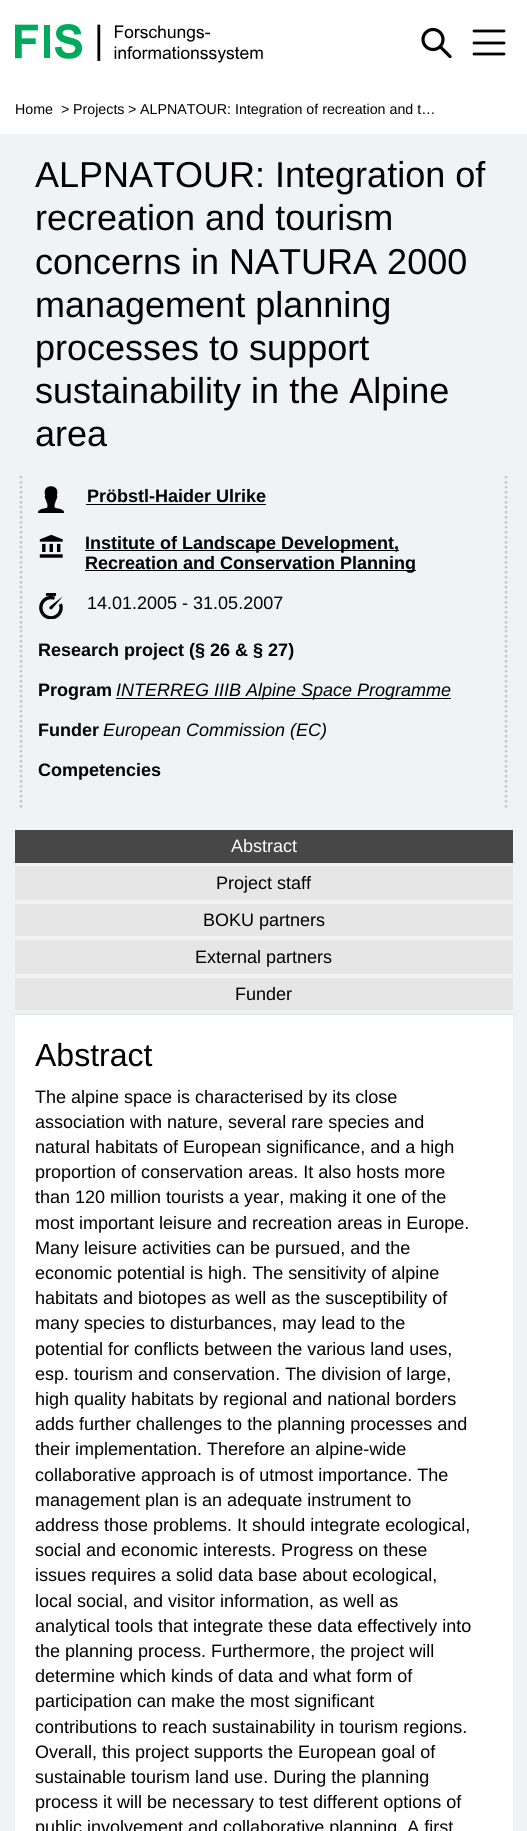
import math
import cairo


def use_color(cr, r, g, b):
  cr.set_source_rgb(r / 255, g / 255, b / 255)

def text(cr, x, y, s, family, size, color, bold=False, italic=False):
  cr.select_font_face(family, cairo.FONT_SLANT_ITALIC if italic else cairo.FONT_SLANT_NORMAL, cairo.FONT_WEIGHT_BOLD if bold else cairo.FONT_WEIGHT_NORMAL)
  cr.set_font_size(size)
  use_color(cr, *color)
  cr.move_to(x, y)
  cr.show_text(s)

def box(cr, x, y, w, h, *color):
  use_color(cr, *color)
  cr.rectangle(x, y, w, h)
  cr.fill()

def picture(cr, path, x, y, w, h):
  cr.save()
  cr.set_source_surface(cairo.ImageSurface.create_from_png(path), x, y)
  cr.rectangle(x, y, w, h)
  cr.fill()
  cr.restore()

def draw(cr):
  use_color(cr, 255, 255, 255)
  cr.paint()
  picture(cr, "img_01.png", 15, 24, 248, 39)
  cr.new_path()
  cr.move_to(440.5, 47)
  cr.line_to(450, 56.5)
  use_color(cr, 0, 0, 0)
  cr.set_line_width(3.2)
  cr.set_line_cap(cairo.LINE_CAP_ROUND)
  cr.set_line_join(cairo.LINE_JOIN_ROUND)
  cr.stroke()
  cr.arc(433, 39.5, 10, 0, 2 * math.pi)
  cr.set_line_cap(cairo.LINE_CAP_BUTT)
  cr.set_line_join(cairo.LINE_JOIN_MITER)
  cr.stroke()
  cr.new_path()
  cr.move_to(474, 31)
  cr.line_to(504, 31)
  cr.move_to(474, 43)
  cr.line_to(504, 43)
  cr.move_to(474, 54)
  cr.line_to(504, 54)
  cr.set_line_width(2.8)
  cr.set_line_cap(cairo.LINE_CAP_ROUND)
  cr.stroke()
  box(cr, 0, 134, 527, 1697, 240, 242, 244)
  cr.new_path()
  cr.move_to(506, 476)
  cr.line_to(506, 630)
  use_color(cr, 202, 201, 200)
  cr.set_line_width(2.5)
  cr.set_line_cap(cairo.LINE_CAP_BUTT)
  cr.set_dash([2.5, 2.5])
  cr.stroke()
  cr.new_path()
  cr.move_to(21, 476)
  cr.line_to(21, 630)
  cr.stroke()
  picture(cr, "img_02.png", 38, 486, 26, 27)
  box(cr, 86, 504, 180, 1, 0, 0, 0)
  picture(cr, "img_03.png", 39, 534, 24, 24)
  box(cr, 85, 550, 314, 1, 0, 0, 0)
  box(cr, 85, 570, 331, 1, 0, 0, 0)
  picture(cr, "img_04.png", 39, 593, 24, 26)
  cr.new_path()
  cr.move_to(506, 630)
  cr.line_to(506, 750)
  use_color(cr, 202, 201, 200)
  cr.stroke()
  cr.new_path()
  cr.move_to(21, 630)
  cr.line_to(21, 750)
  cr.stroke()
  box(cr, 116, 698, 335, 1, 0, 0, 0)
  cr.new_path()
  cr.move_to(506, 750)
  cr.line_to(506, 810)
  use_color(cr, 202, 201, 200)
  cr.stroke()
  cr.new_path()
  cr.move_to(21, 750)
  cr.line_to(21, 810)
  cr.stroke()
  box(cr, 15, 1014, 498, 1, 222, 226, 230)
  box(cr, 15, 830, 498, 33, 71, 71, 71)
  box(cr, 15, 866, 498, 34, 230, 230, 230)
  box(cr, 15, 904, 498, 32, 230, 230, 230)
  box(cr, 15, 940, 498, 34, 230, 230, 230)
  box(cr, 15, 978, 498, 32, 230, 230, 230)
  box(cr, 15, 1015, 498, 816, 255, 255, 255)
  text(cr, 15, 114, "Home", "Liberation Sans", 14.25, (0, 0, 0))
  text(cr, 61, 114, ">", "Liberation Sans", 14.25, (0, 0, 0))
  text(cr, 73, 114, "Projects", "Liberation Sans", 14.25, (0, 0, 0))
  text(cr, 128, 114, ">", "Liberation Sans", 14.25, (0, 0, 0))
  text(cr, 140, 114, "ALPNATOUR: Integration of recreation and t…", "Liberation Sans", 14.25, (0, 0, 0))
  text(cr, 35, 187, "ALPNATOUR: Integration of", "Liberation Sans", 36, (0, 0, 0))
  text(cr, 35, 230, "recreation and tourism", "Liberation Sans", 36, (0, 0, 0))
  text(cr, 35, 274, "concerns in NATURA 2000", "Liberation Sans", 36, (0, 0, 0))
  text(cr, 35, 317, "management planning", "Liberation Sans", 36, (0, 0, 0))
  text(cr, 35, 360, "processes to support", "Liberation Sans", 36, (0, 0, 0))
  text(cr, 35, 403, "sustainability in the Alpine", "Liberation Sans", 36, (0, 0, 0))
  text(cr, 35, 446, "area", "Liberation Sans", 36, (0, 0, 0))
  text(cr, 87, 502, "Pröbstl-Haider Ulrike", "Liberation Sans", 18, (0, 0, 0), bold=True)
  text(cr, 85, 549, "Institute of Landscape Development,", "Liberation Sans", 18, (0, 0, 0), bold=True)
  text(cr, 85, 569, "Recreation and Conservation Planning", "Liberation Sans", 18, (0, 0, 0), bold=True)
  text(cr, 87, 609, "14.01.2005 - 31.05.2007", "Liberation Sans", 18, (0, 0, 0))
  text(cr, 38, 656, "Research project (§ 26 & § 27)", "Liberation Sans", 18, (0, 0, 0), bold=True)
  text(cr, 38, 696, "Program", "Liberation Sans", 18, (0, 0, 0), bold=True)
  text(cr, 116, 696, "INTERREG IIIB Alpine Space Programme", "Liberation Sans", 18, (0, 0, 0), italic=True)
  text(cr, 38, 736, "Funder", "Liberation Sans", 18, (0, 0, 0), bold=True)
  text(cr, 103, 736, "European Commission (EC)", "Liberation Sans", 18, (0, 0, 0), italic=True)
  text(cr, 38, 776, "Competencies", "Liberation Sans", 18, (0, 0, 0), bold=True)
  text(cr, 231, 852, "Abstract", "Liberation Sans", 18, (255, 255, 255))
  text(cr, 216, 889, "Project staff", "Liberation Sans", 18, (0, 0, 0))
  text(cr, 203, 926, "BOKU partners", "Liberation Sans", 18, (0, 0, 0))
  text(cr, 195, 963, "External partners", "Liberation Sans", 18, (0, 0, 0))
  text(cr, 235, 1000, "Funder", "Liberation Sans", 18, (0, 0, 0))
  text(cr, 35, 1066, "Abstract", "Liberation Sans", 32, (0, 0, 0))
  text(cr, 35, 1103, "The alpine space is characterised by its close", "Liberation Sans", 18, (0, 0, 0))
  text(cr, 35, 1128, "association with nature, several rare species and", "Liberation Sans", 18, (0, 0, 0))
  text(cr, 35, 1153, "natural habitats of European significance, and a high", "Liberation Sans", 18, (0, 0, 0))
  text(cr, 35, 1178, "proportion of conservation areas. It also hosts more", "Liberation Sans", 18, (0, 0, 0))
  text(cr, 35, 1203, "than 120 million tourists a year, making it one of the", "Liberation Sans", 18, (0, 0, 0))
  text(cr, 35, 1229, "most important leisure and recreation areas in Europe.", "Liberation Sans", 18, (0, 0, 0))
  text(cr, 35, 1254, "Many leisure activities can be pursued, and the", "Liberation Sans", 18, (0, 0, 0))
  text(cr, 35, 1279, "economic potential is high. The sensitivity of alpine", "Liberation Sans", 18, (0, 0, 0))
  text(cr, 35, 1304, "habitats and biotopes as well as the susceptibility of", "Liberation Sans", 18, (0, 0, 0))
  text(cr, 35, 1329, "many species to disturbances, may lead to the", "Liberation Sans", 18, (0, 0, 0))
  text(cr, 35, 1355, "potential for conflicts between the various land uses,", "Liberation Sans", 18, (0, 0, 0))
  text(cr, 35, 1380, "esp. tourism and conservation. The division of large,", "Liberation Sans", 18, (0, 0, 0))
  text(cr, 35, 1405, "high quality habitats by regional and national borders", "Liberation Sans", 18, (0, 0, 0))
  text(cr, 35, 1430, "adds further challenges to the planning processes and", "Liberation Sans", 18, (0, 0, 0))
  text(cr, 35, 1455, "their implementation. Therefore an alpine-wide", "Liberation Sans", 18, (0, 0, 0))
  text(cr, 35, 1481, "collaborative approach is of utmost importance. The", "Liberation Sans", 18, (0, 0, 0))
  text(cr, 35, 1506, "management plan is an adequate instrument to", "Liberation Sans", 18, (0, 0, 0))
  text(cr, 35, 1531, "address those problems. It should integrate ecological,", "Liberation Sans", 18, (0, 0, 0))
  text(cr, 35, 1556, "social and economic interests. Progress on these", "Liberation Sans", 18, (0, 0, 0))
  text(cr, 35, 1581, "issues requires a solid data base about ecological,", "Liberation Sans", 18, (0, 0, 0))
  text(cr, 35, 1607, "local social, and visitor information, as well as", "Liberation Sans", 18, (0, 0, 0))
  text(cr, 35, 1632, "analytical tools that integrate these data effectively into", "Liberation Sans", 18, (0, 0, 0))
  text(cr, 35, 1657, "the planning process. Furthermore, the project will", "Liberation Sans", 18, (0, 0, 0))
  text(cr, 35, 1682, "determine which kinds of data and what form of", "Liberation Sans", 18, (0, 0, 0))
  text(cr, 35, 1707, "participation can make the most significant", "Liberation Sans", 18, (0, 0, 0))
  text(cr, 35, 1733, "contributions to reach sustainability in tourism regions.", "Liberation Sans", 18, (0, 0, 0))
  text(cr, 35, 1758, "Overall, this project supports the European goal of", "Liberation Sans", 18, (0, 0, 0))
  text(cr, 35, 1783, "sustainable tourism land use. During the planning", "Liberation Sans", 18, (0, 0, 0))
  text(cr, 35, 1808, "process it will be necessary to test different options of", "Liberation Sans", 18, (0, 0, 0))
  text(cr, 35, 1833, "public involvement and collaborative planning. A first", "Liberation Sans", 18, (0, 0, 0))


surface = cairo.ImageSurface(cairo.FORMAT_RGB24, 527, 1831)
cr = cairo.Context(surface)
options = cairo.FontOptions()
options.set_hint_metrics(cairo.HINT_METRICS_OFF)
options.set_hint_style(cairo.HINT_STYLE_NONE)
cr.set_font_options(options)
cr.set_miter_limit(4)
draw(cr)
surface.write_to_png("out.png")
